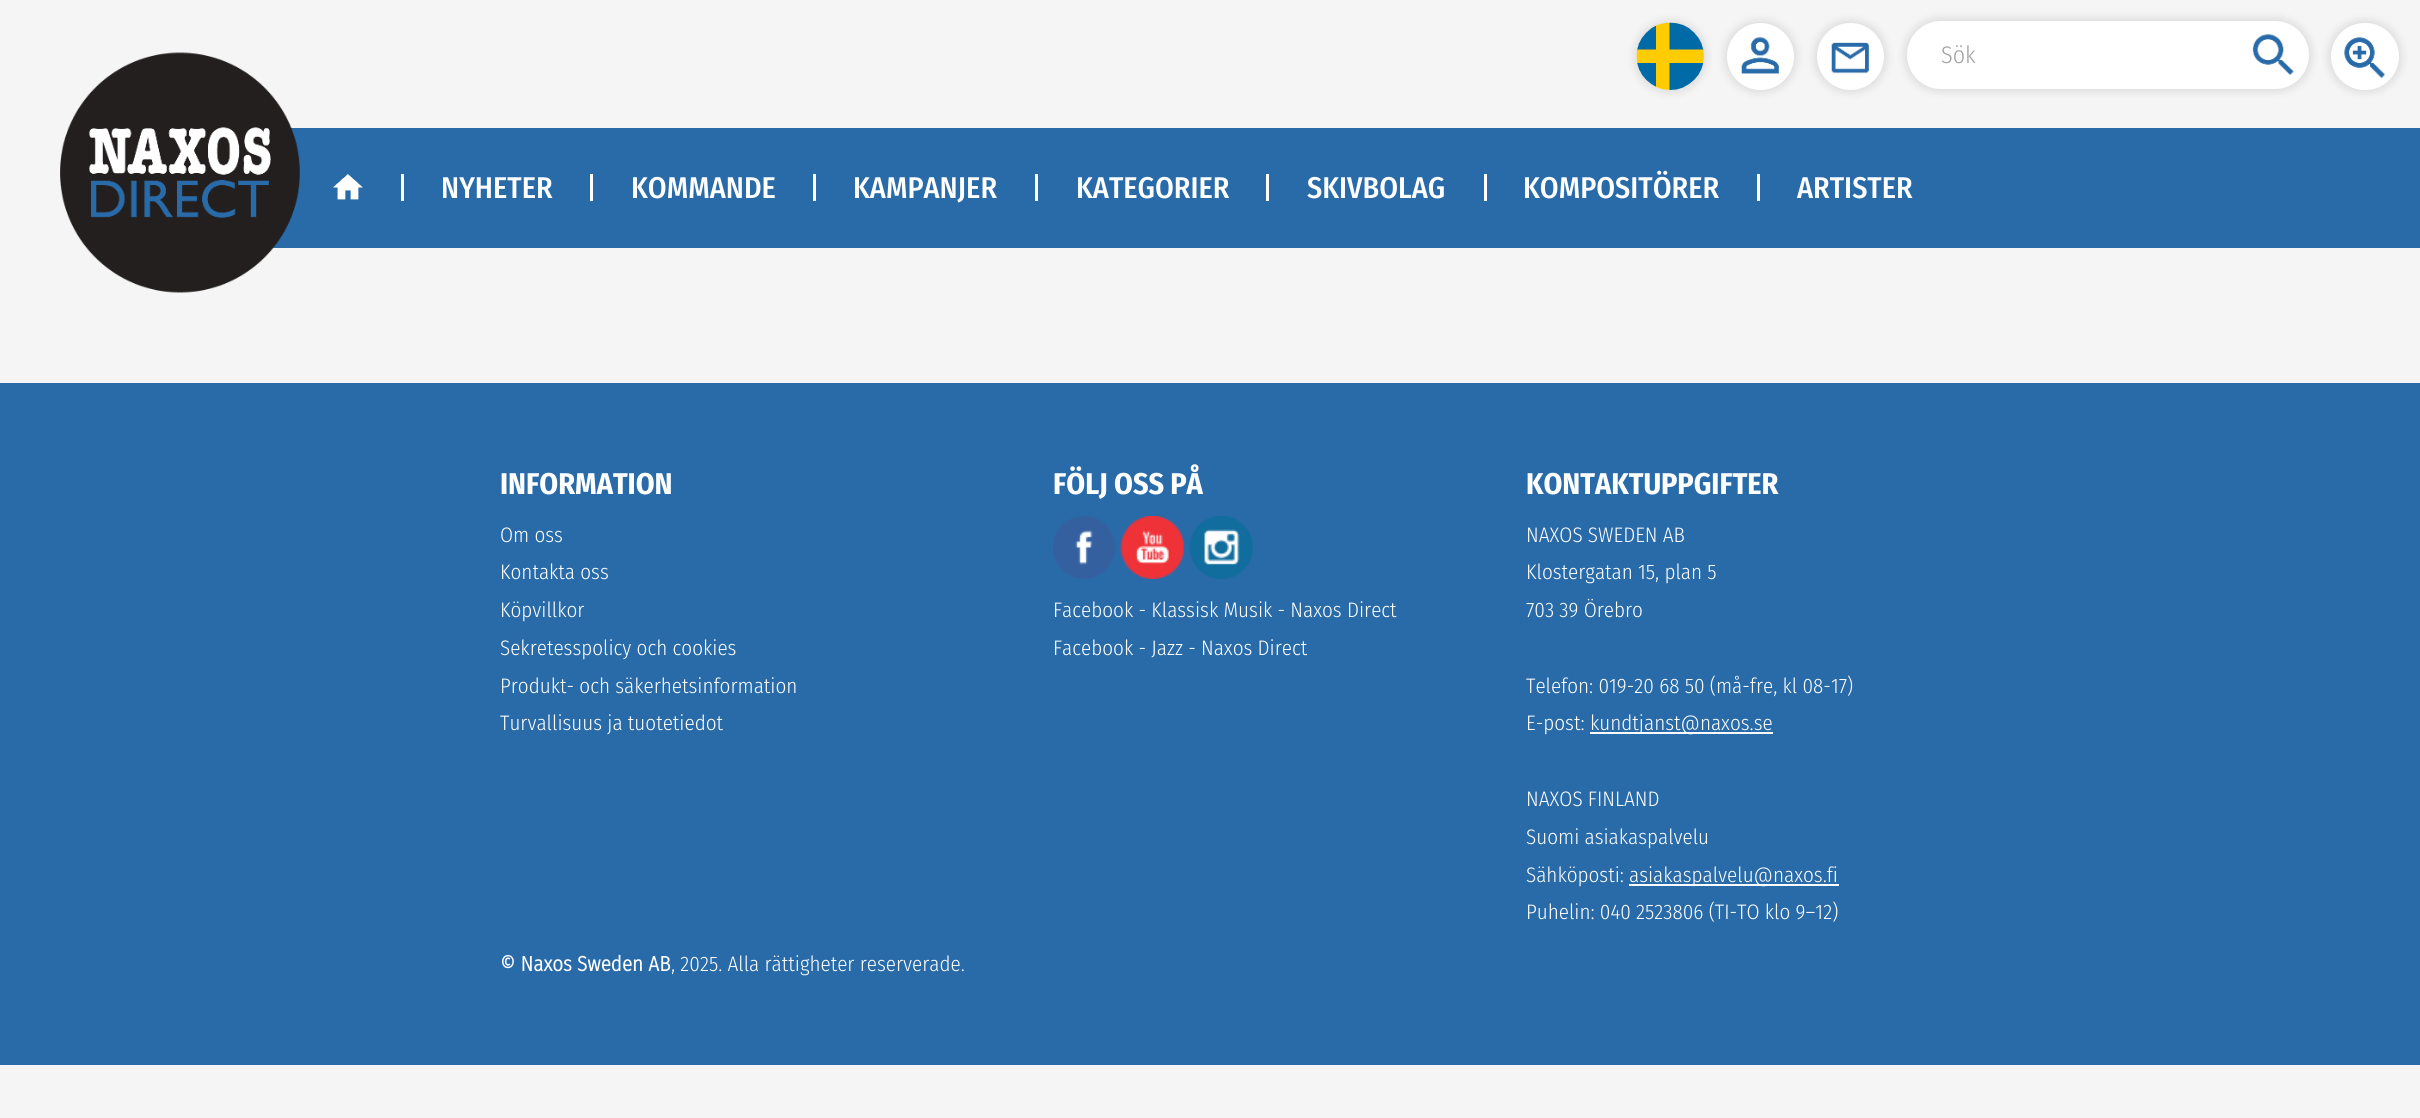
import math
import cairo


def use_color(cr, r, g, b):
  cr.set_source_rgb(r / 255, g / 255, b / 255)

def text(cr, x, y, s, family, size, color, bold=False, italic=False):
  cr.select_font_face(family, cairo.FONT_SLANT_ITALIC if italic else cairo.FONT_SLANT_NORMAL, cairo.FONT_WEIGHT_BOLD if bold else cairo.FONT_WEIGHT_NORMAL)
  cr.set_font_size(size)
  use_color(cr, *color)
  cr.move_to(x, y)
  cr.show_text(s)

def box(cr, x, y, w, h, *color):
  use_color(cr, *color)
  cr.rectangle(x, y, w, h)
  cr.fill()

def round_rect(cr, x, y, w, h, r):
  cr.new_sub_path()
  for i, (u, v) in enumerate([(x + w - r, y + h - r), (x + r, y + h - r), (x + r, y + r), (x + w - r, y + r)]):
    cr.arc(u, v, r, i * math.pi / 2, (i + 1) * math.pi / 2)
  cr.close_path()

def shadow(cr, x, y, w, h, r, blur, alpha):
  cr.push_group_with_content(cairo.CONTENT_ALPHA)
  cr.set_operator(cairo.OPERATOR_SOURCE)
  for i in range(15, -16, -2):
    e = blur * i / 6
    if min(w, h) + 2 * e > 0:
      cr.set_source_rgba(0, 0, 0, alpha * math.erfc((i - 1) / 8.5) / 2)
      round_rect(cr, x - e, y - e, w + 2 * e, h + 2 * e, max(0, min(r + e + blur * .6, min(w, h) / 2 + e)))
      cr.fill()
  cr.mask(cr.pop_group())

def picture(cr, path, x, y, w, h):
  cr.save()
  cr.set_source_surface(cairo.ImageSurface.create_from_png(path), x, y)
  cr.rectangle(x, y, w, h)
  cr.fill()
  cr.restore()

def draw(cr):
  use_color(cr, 245, 245, 245)
  cr.paint()
  use_color(cr, 0, 0, 0)
  shadow(cr, 1634, 20, 73, 73, 36.5, 4, 0.1)
  use_color(cr, 255, 255, 255)
  cr.arc(1670.5, 56.5, 33.5, 0, 2 * math.pi)
  cr.fill()
  picture(cr, "img_01.png", 1636, 22, 68, 68)
  use_color(cr, 0, 0, 0)
  shadow(cr, 1724, 20, 73, 73, 36.5, 4, 0.1)
  use_color(cr, 255, 255, 255)
  cr.arc(1760.5, 56.5, 33.5, 0, 2 * math.pi)
  cr.fill()
  picture(cr, "img_02.png", 1741, 37, 38, 37)
  use_color(cr, 0, 0, 0)
  shadow(cr, 1814, 20, 73, 73, 36.5, 4, 0.1)
  use_color(cr, 255, 255, 255)
  cr.arc(1850.5, 56.5, 33.5, 0, 2 * math.pi)
  cr.fill()
  picture(cr, "img_03.png", 1831, 42, 39, 32)
  use_color(cr, 0, 0, 0)
  shadow(cr, 1904, 18, 408, 74, 37, 4, 0.1)
  use_color(cr, 255, 255, 255)
  round_rect(cr, 1907, 21, 402, 68, 34)
  cr.fill()
  picture(cr, "img_04.png", 2252, 34, 42, 42)
  use_color(cr, 0, 0, 0)
  shadow(cr, 2328, 20, 74, 73, 36.5, 4, 0.1)
  use_color(cr, 255, 255, 255)
  round_rect(cr, 2331, 23, 68, 67, 33.5)
  cr.fill()
  picture(cr, "img_05.png", 2344, 37, 42, 42)
  box(cr, 272, 128, 2148, 120, 41, 107, 169)
  picture(cr, "img_06.png", 60, 52, 240, 241)
  picture(cr, "img_07.png", 333, 174, 30, 26)
  box(cr, 401, 174, 3, 27, 255, 255, 255)
  box(cr, 590, 174, 3, 27, 255, 255, 255)
  box(cr, 813, 174, 3, 27, 255, 255, 255)
  box(cr, 1035, 174, 3, 27, 255, 255, 255)
  box(cr, 1266, 174, 3, 27, 255, 255, 255)
  box(cr, 1484, 174, 3, 27, 255, 255, 255)
  box(cr, 1757, 174, 3, 27, 255, 255, 255)
  box(cr, 0, 383, 2420, 682, 41, 107, 169)
  picture(cr, "img_08.png", 1053, 516, 63, 63)
  picture(cr, "img_09.png", 1120, 516, 64, 63)
  picture(cr, "img_10.png", 1189, 516, 64, 63)
  box(cr, 1590, 732, 183, 2, 255, 255, 255)
  box(cr, 1629, 884, 210, 2, 255, 255, 255)
  text(cr, 1941, 63, "Sök", "Fira Sans Condensed Light", 24, (160, 160, 160))
  text(cr, 441, 198, "NYHETER", "Fira Sans Condensed Medium", 30, (255, 255, 255))
  text(cr, 631, 198, "KOMMANDE", "Fira Sans Condensed Medium", 30, (255, 255, 255))
  text(cr, 853, 198, "KAMPANJER", "Fira Sans Condensed Medium", 30, (255, 255, 255))
  text(cr, 1076, 198, "KATEGORIER", "Fira Sans Condensed Medium", 30, (255, 255, 255))
  text(cr, 1307, 198, "SKIVBOLAG", "Fira Sans Condensed Medium", 30, (255, 255, 255))
  text(cr, 1523, 198, "KOMPOSITÖRER", "Fira Sans Condensed Medium", 30, (255, 255, 255))
  text(cr, 1797, 198, "ARTISTER", "Fira Sans Condensed Medium", 30, (255, 255, 255))
  text(cr, 500, 494, "INFORMATION", "Fira Sans Condensed", 30, (255, 255, 255), bold=True)
  text(cr, 500, 542, "Om oss", "Fira Sans Condensed Light", 21, (255, 255, 255))
  text(cr, 500, 579, "Kontakta oss", "Fira Sans Condensed Light", 21, (255, 255, 255))
  text(cr, 500, 617, "Köpvillkor", "Fira Sans Condensed Light", 21, (255, 255, 255))
  text(cr, 500, 655, "Sekretesspolicy och cookies", "Fira Sans Condensed Light", 21, (255, 255, 255))
  text(cr, 500, 693, "Produkt- och säkerhetsinformation", "Fira Sans Condensed Light", 21, (255, 255, 255))
  text(cr, 500, 730, "Turvallisuus ja tuotetiedot", "Fira Sans Condensed Light", 21, (255, 255, 255))
  text(cr, 1053, 494, "FÖLJ OSS PÅ", "Fira Sans Condensed", 30, (255, 255, 255), bold=True)
  text(cr, 1053, 617, "Facebook - Klassisk Musik - Naxos Direct", "Fira Sans Condensed Light", 21, (255, 255, 255))
  text(cr, 1053, 655, "Facebook - Jazz - Naxos Direct", "Fira Sans Condensed Light", 21, (255, 255, 255))
  text(cr, 1526, 494, "KONTAKTUPPGIFTER", "Fira Sans Condensed", 30, (255, 255, 255), bold=True)
  text(cr, 1526, 542, "NAXOS SWEDEN AB", "Fira Sans Condensed Light", 21, (255, 255, 255))
  text(cr, 1526, 579, "Klostergatan 15, plan 5", "Fira Sans Condensed Light", 21, (255, 255, 255))
  text(cr, 1526, 617, "703 39 Örebro", "Fira Sans Condensed Light", 21, (255, 255, 255))
  text(cr, 1526, 693, "Telefon: 019-20 68 50 (må-fre, kl 08-17)", "Fira Sans Condensed Light", 21, (255, 255, 255))
  text(cr, 1526, 730, "E-post:", "Fira Sans Condensed Light", 21, (255, 255, 255))
  text(cr, 1590, 730, "kundtjanst@naxos.se", "Fira Sans Condensed Light", 21, (255, 255, 255))
  text(cr, 1526, 806, "NAXOS FINLAND", "Fira Sans Condensed Light", 21, (255, 255, 255))
  text(cr, 1526, 844, "Suomi asiakaspalvelu", "Fira Sans Condensed Light", 21, (255, 255, 255))
  text(cr, 1526, 882, "Sähköposti:", "Fira Sans Condensed Light", 21, (255, 255, 255))
  text(cr, 1629, 882, "asiakaspalvelu@naxos.fi", "Fira Sans Condensed Light", 21, (255, 255, 255))
  text(cr, 1526, 919, "Puhelin: 040 2523806 (TI-TO klo 9–12)", "Fira Sans Condensed Light", 21, (255, 255, 255))
  text(cr, 500, 971, "© Naxos Sweden AB", "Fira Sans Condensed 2", 21, (255, 255, 255), bold=True)
  text(cr, 671, 971, ", 2025. Alla rättigheter reserverade.", "Fira Sans Condensed Light", 21, (255, 255, 255))


surface = cairo.ImageSurface(cairo.FORMAT_RGB24, 2420, 1118)
cr = cairo.Context(surface)
options = cairo.FontOptions()
options.set_hint_metrics(cairo.HINT_METRICS_OFF)
options.set_hint_style(cairo.HINT_STYLE_NONE)
cr.set_font_options(options)
cr.set_miter_limit(4)
draw(cr)
surface.write_to_png("out.png")
